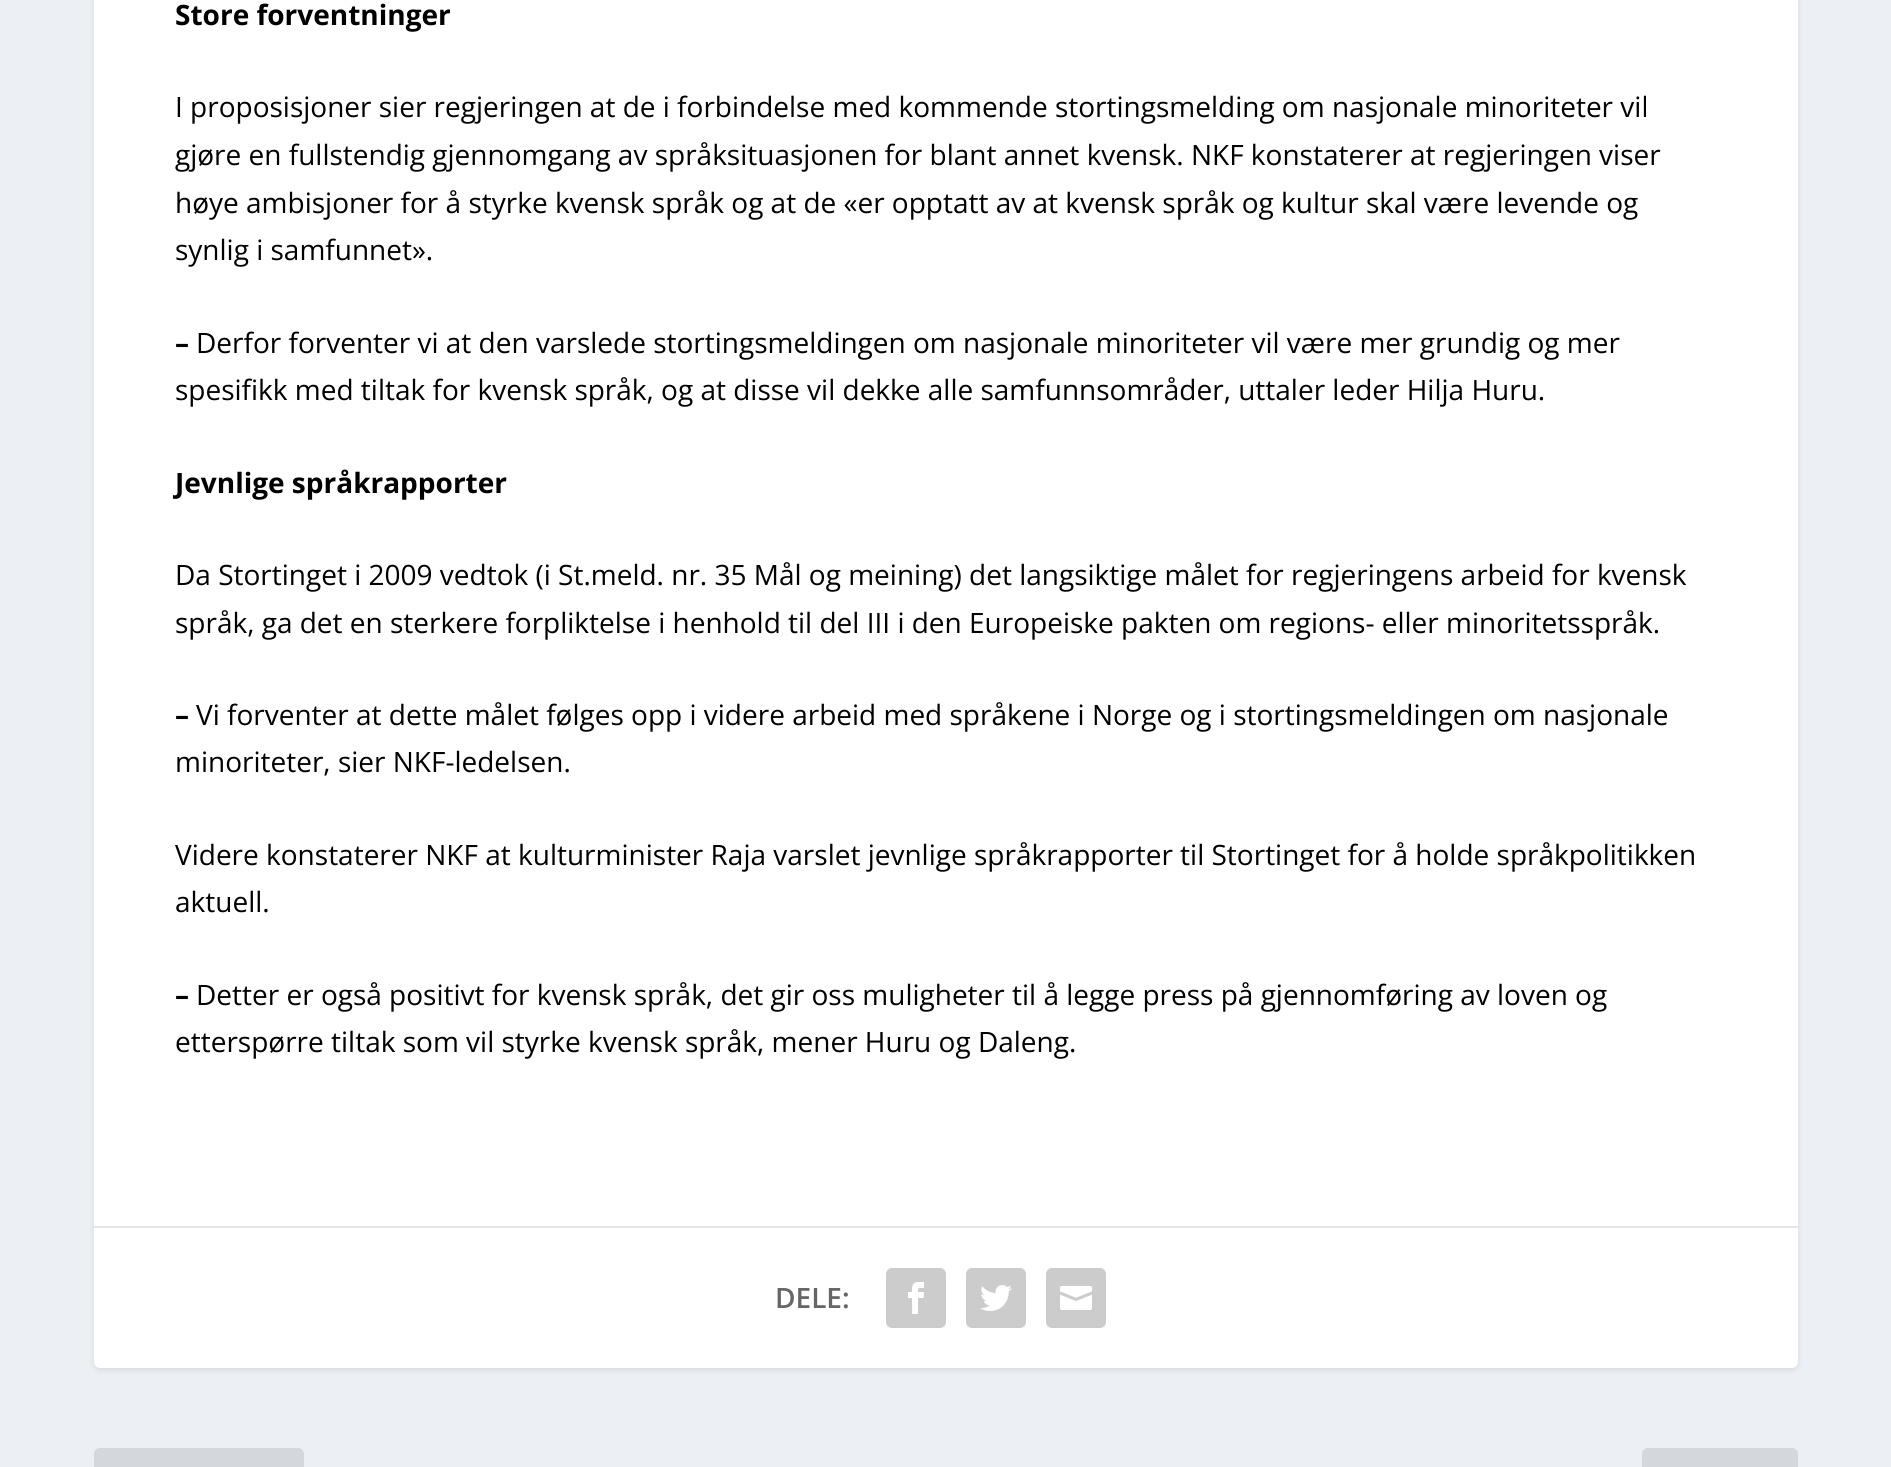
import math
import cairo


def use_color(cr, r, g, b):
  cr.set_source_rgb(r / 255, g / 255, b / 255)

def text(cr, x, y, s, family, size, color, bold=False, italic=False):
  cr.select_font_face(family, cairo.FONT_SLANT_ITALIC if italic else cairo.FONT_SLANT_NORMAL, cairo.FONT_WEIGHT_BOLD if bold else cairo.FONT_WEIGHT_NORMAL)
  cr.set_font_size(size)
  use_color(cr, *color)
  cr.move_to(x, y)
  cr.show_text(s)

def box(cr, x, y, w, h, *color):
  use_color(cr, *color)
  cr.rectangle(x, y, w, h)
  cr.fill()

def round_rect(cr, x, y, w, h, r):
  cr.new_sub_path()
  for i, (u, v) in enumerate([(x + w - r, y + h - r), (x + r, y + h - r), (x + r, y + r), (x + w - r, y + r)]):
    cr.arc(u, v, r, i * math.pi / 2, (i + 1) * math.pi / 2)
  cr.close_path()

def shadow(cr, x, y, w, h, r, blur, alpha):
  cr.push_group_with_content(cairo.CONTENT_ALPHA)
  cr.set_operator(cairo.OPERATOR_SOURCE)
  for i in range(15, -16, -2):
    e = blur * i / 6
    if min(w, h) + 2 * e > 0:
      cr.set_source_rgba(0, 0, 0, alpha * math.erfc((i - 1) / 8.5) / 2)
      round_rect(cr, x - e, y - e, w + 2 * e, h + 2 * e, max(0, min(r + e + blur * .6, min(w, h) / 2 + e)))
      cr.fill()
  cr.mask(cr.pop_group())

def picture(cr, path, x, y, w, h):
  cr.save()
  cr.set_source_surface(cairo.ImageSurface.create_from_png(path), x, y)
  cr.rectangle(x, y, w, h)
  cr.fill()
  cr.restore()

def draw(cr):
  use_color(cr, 236, 240, 245)
  cr.paint()
  use_color(cr, 0, 0, 0)
  shadow(cr, 94, -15, 1704, 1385, 6, 3, 0.1)
  use_color(cr, 255, 255, 255)
  round_rect(cr, 94, -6, 1704, 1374, 6)
  cr.fill()
  box(cr, 94, 1226, 1704, 2, 230, 230, 230)
  use_color(cr, 204, 204, 204)
  round_rect(cr, 886, 1268, 60, 60, 6)
  cr.fill()
  picture(cr, "img_01.png", 908, 1282, 16, 32)
  round_rect(cr, 966, 1268, 60, 60, 6)
  cr.fill()
  picture(cr, "img_02.png", 980, 1285, 32, 26)
  round_rect(cr, 1046, 1268, 60, 60, 6)
  cr.fill()
  picture(cr, "img_03.png", 1060, 1286, 32, 24)
  use_color(cr, 212, 216, 221)
  round_rect(cr, 94, 1448, 210, 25, 6)
  cr.fill()
  round_rect(cr, 1642, 1448, 156, 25, 6)
  cr.fill()
  text(cr, 175, 25, "Store forventninger", "Open Sans", 28, (0, 0, 0), bold=True)
  text(cr, 175, 117, "I proposisjoner sier regjeringen at de i forbindelse med kommende stortingsmelding om nasjonale minoriteter vil", "Open Sans", 28, (0, 0, 0))
  text(cr, 175, 165, "gjøre en fullstendig gjennomgang av språksituasjonen for blant annet kvensk. NKF konstaterer at regjeringen viser", "Open Sans", 28, (0, 0, 0))
  text(cr, 175, 213, "høye ambisjoner for å styrke kvensk språk og at de «er opptatt av at kvensk språk og kultur skal være levende og", "Open Sans", 28, (0, 0, 0))
  text(cr, 175, 260, "synlig i samfunnet».", "Open Sans", 28, (0, 0, 0))
  text(cr, 175, 353, "–", "Open Sans", 28, (0, 0, 0), bold=True)
  text(cr, 196, 353, "Derfor forventer vi at den varslede stortingsmeldingen om nasjonale minoriteter vil være mer grundig og mer", "Open Sans", 28, (0, 0, 0))
  text(cr, 175, 400, "spesifikk med tiltak for kvensk språk, og at disse vil dekke alle samfunnsområder, uttaler leder Hilja Huru.", "Open Sans", 28, (0, 0, 0))
  text(cr, 175, 493, "Jevnlige språkrapporter", "Open Sans", 28, (0, 0, 0), bold=True)
  text(cr, 175, 585, "Da Stortinget i 2009 vedtok (i St.meld. nr. 35 Mål og meining) det langsiktige målet for regjeringens arbeid for kvensk", "Open Sans", 28, (0, 0, 0))
  text(cr, 175, 633, "språk, ga det en sterkere forpliktelse i henhold til del III i den Europeiske pakten om regions- eller minoritetsspråk.", "Open Sans", 28, (0, 0, 0))
  text(cr, 175, 725, "–", "Open Sans", 28, (0, 0, 0), bold=True)
  text(cr, 196, 725, "Vi forventer at dette målet følges opp i videre arbeid med språkene i Norge og i stortingsmeldingen om nasjonale", "Open Sans", 28, (0, 0, 0))
  text(cr, 175, 772, "minoriteter, sier NKF-ledelsen.", "Open Sans", 28, (0, 0, 0))
  text(cr, 175, 865, "Videre konstaterer NKF at kulturminister Raja varslet jevnlige språkrapporter til Stortinget for å holde språkpolitikken", "Open Sans", 28, (0, 0, 0))
  text(cr, 175, 912, "aktuell.", "Open Sans", 28, (0, 0, 0))
  text(cr, 175, 1005, "–", "Open Sans", 28, (0, 0, 0), bold=True)
  text(cr, 196, 1005, "Detter er også positivt for kvensk språk, det gir oss muligheter til å legge press på gjennomføring av loven og", "Open Sans", 28, (0, 0, 0))
  text(cr, 175, 1052, "etterspørre tiltak som vil styrke kvensk språk, mener Huru og Daleng.", "Open Sans", 28, (0, 0, 0))
  text(cr, 775, 1308, "DELE:", "Open Sans SemiBold", 28, (102, 102, 102))


surface = cairo.ImageSurface(cairo.FORMAT_RGB24, 1891, 1467)
cr = cairo.Context(surface)
options = cairo.FontOptions()
options.set_hint_metrics(cairo.HINT_METRICS_OFF)
options.set_hint_style(cairo.HINT_STYLE_NONE)
cr.set_font_options(options)
cr.set_miter_limit(4)
draw(cr)
surface.write_to_png("out.png")
